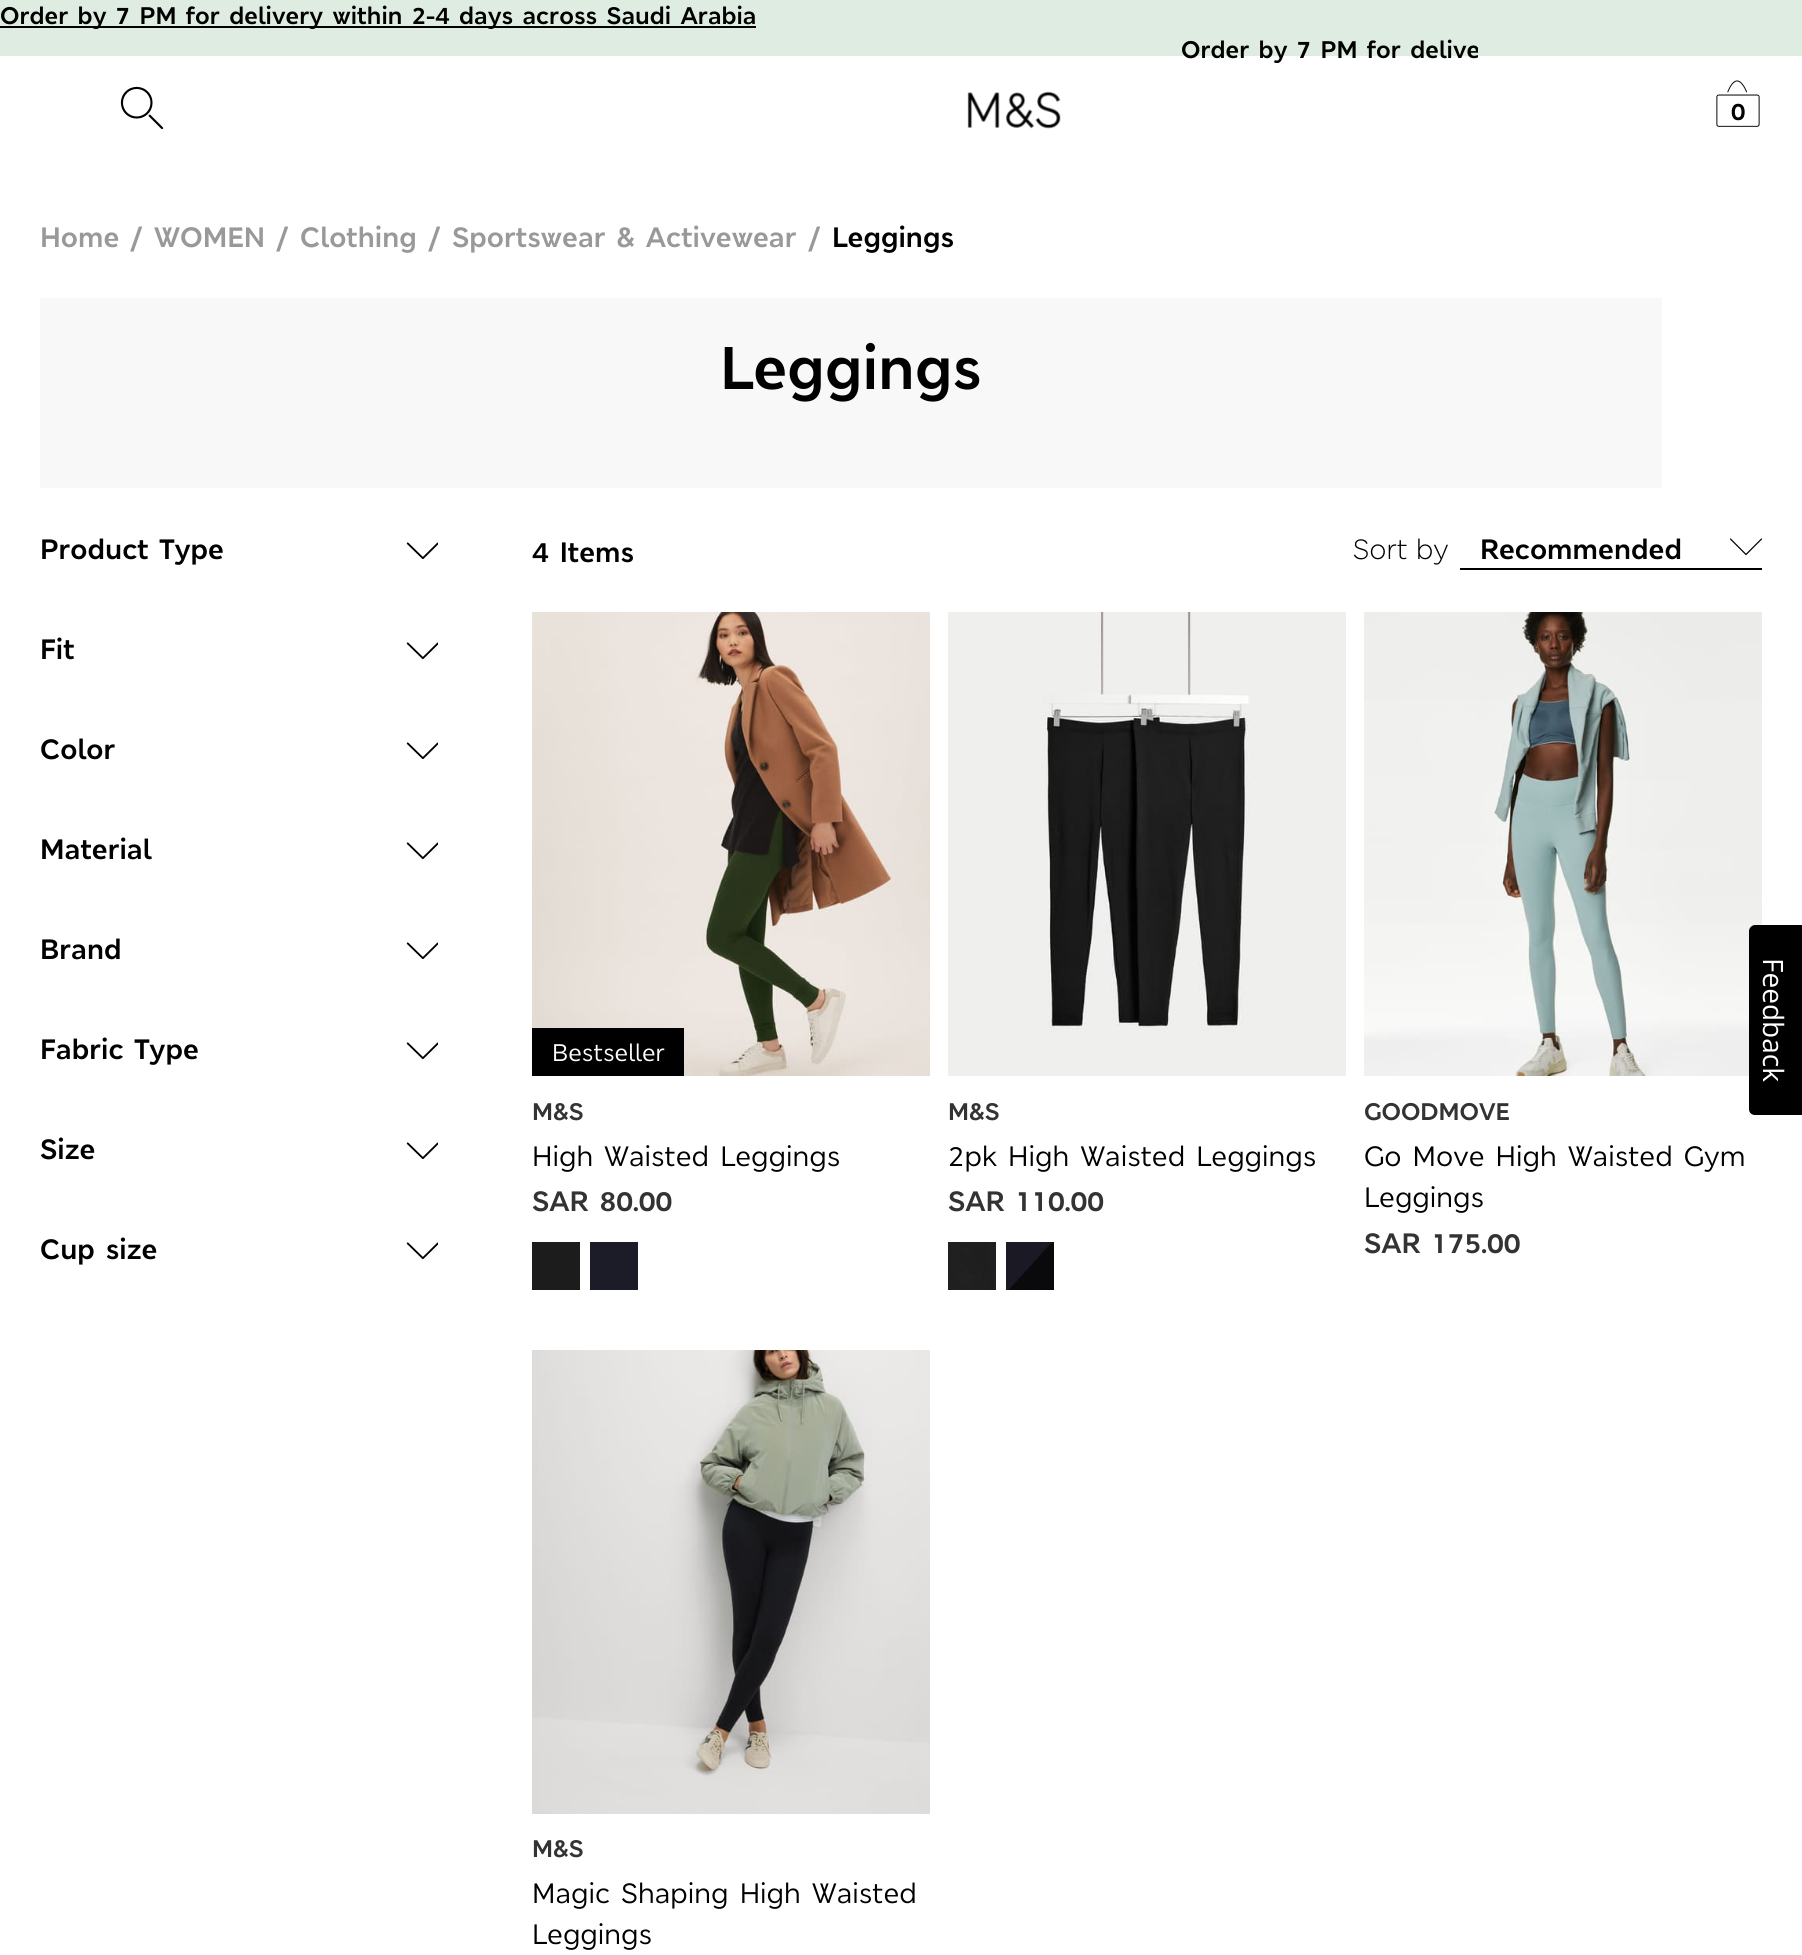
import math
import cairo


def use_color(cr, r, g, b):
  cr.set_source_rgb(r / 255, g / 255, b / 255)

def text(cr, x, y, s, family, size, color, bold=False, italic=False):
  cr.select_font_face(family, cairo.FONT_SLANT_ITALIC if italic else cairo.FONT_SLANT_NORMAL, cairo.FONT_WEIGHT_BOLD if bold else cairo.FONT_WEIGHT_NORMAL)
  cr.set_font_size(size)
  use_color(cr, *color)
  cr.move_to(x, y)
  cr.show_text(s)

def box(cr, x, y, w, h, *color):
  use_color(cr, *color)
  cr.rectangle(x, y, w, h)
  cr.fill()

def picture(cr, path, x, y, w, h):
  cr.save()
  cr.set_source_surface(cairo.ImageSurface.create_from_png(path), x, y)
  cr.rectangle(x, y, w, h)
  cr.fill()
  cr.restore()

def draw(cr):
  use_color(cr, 255, 255, 255)
  cr.paint()
  box(cr, 0, 0, 1802, 56, 223, 236, 226)
  box(cr, 0, 26, 756, 2, 0, 0, 0)
  picture(cr, "img_01.png", 120, 86, 44, 44)
  picture(cr, "img_02.png", 967, 91, 94, 38)
  picture(cr, "img_03.png", 1716, 80, 44, 47)
  box(cr, 40, 298, 1622, 190, 248, 248, 248)
  picture(cr, "img_04.png", 406, 542, 32, 18)
  picture(cr, "img_04.png", 406, 642, 32, 18)
  picture(cr, "img_04.png", 406, 742, 32, 18)
  picture(cr, "img_04.png", 406, 842, 32, 18)
  picture(cr, "img_04.png", 406, 942, 32, 18)
  picture(cr, "img_04.png", 406, 1042, 32, 18)
  picture(cr, "img_04.png", 406, 1142, 32, 18)
  picture(cr, "img_04.png", 406, 1242, 32, 18)
  box(cr, 1460, 568, 302, 2, 0, 0, 0)
  picture(cr, "img_05.png", 1730, 538, 32, 18)
  picture(cr, "img_06.png", 532, 612, 398, 464)
  box(cr, 532, 1028, 152, 48, 0, 0, 0)
  box(cr, 532, 1242, 48, 48, 28, 28, 28)
  box(cr, 590, 1242, 48, 48, 28, 28, 40)
  picture(cr, "img_07.png", 948, 612, 398, 464)
  picture(cr, "img_08.png", 948, 1242, 48, 48)
  picture(cr, "img_09.png", 1006, 1242, 48, 48)
  picture(cr, "img_10.png", 1364, 612, 398, 464)
  picture(cr, "img_11.png", 532, 1350, 398, 464)
  use_color(cr, 0, 0, 0)
  cr.new_path()
  cr.move_to(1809, 925)
  cr.line_to(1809, 1115)
  cr.line_to(1755, 1115)
  cr.curve_to(1752, 1115, 1749, 1113, 1749, 1109)
  cr.line_to(1749, 931)
  cr.curve_to(1749, 928, 1752, 925, 1755, 925)
  cr.close_path()
  cr.fill()
  text(cr, 0, 24, "Order by 7 PM for delivery within 2-4 days across Saudi Arabia", "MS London", 24, (0, 0, 0), bold=True)
  cr.save()
  cr.rectangle(0, 34, 1478, 200)
  cr.clip()
  text(cr, 1181, 58, "Order by 7 PM for delive", "MS London", 24, (0, 0, 0), bold=True)
  cr.restore()
  text(cr, 1731, 120, "0", "MS London", 24, (0, 0, 0), bold=True)
  text(cr, 40, 247, "Home", "MS London", 28, (153, 153, 153), bold=True)
  text(cr, 131, 247, "/", "MS London", 28, (153, 153, 153), bold=True)
  text(cr, 154, 247, "WOMEN", "MS London", 28, (153, 153, 153), bold=True)
  text(cr, 277, 247, "/", "MS London", 28, (153, 153, 153), bold=True)
  text(cr, 300, 247, "Clothing", "MS London", 28, (153, 153, 153), bold=True)
  text(cr, 429, 247, "/", "MS London", 28, (153, 153, 153), bold=True)
  text(cr, 452, 247, "Sportswear & Activewear", "MS London", 28, (153, 153, 153), bold=True)
  text(cr, 809, 247, "/", "MS London", 28, (153, 153, 153), bold=True)
  text(cr, 832, 247, "Leggings", "MS London", 28, (0, 0, 0), bold=True)
  text(cr, 720, 389, "Leggings", "MS London", 60, (0, 0, 0), bold=True)
  text(cr, 40, 559, "Product Type", "MS London", 28, (0, 0, 0), bold=True)
  text(cr, 40, 659, "Fit", "MS London", 28, (0, 0, 0), bold=True)
  text(cr, 40, 759, "Color", "MS London", 28, (0, 0, 0), bold=True)
  text(cr, 40, 859, "Material", "MS London", 28, (0, 0, 0), bold=True)
  text(cr, 40, 959, "Brand", "MS London", 28, (0, 0, 0), bold=True)
  text(cr, 40, 1059, "Fabric Type", "MS London", 28, (0, 0, 0), bold=True)
  text(cr, 40, 1159, "Size", "MS London", 28, (0, 0, 0), bold=True)
  text(cr, 40, 1259, "Cup size", "MS London", 28, (0, 0, 0), bold=True)
  text(cr, 532, 562, "4 Items", "MS London", 28, (0, 0, 0), bold=True)
  text(cr, 1353, 559, "Sort by", "MS London", 28, (0, 0, 0))
  text(cr, 1480, 559, "Recommended", "MS London", 28, (0, 0, 0), bold=True)
  text(cr, 552, 1061, "Bestseller", "MS London SemiBold", 24, (255, 255, 255))
  text(cr, 532, 1120, "M&S", "MS London", 24, (51, 51, 51), bold=True)
  text(cr, 532, 1166, "High Waisted Leggings", "MS London SemiBold", 28, (0, 0, 0))
  text(cr, 532, 1211, "SAR 80.00", "MS London", 28, (51, 51, 51), bold=True)
  text(cr, 948, 1120, "M&S", "MS London", 24, (51, 51, 51), bold=True)
  text(cr, 948, 1166, "2pk High Waisted Leggings", "MS London SemiBold", 28, (0, 0, 0))
  text(cr, 948, 1211, "SAR 110.00", "MS London", 28, (51, 51, 51), bold=True)
  text(cr, 1364, 1120, "GOODMOVE", "MS London", 24, (51, 51, 51), bold=True)
  text(cr, 1364, 1166, "Go Move High Waisted Gym", "MS London SemiBold", 28, (0, 0, 0))
  text(cr, 1364, 1207, "Leggings", "MS London SemiBold", 28, (0, 0, 0))
  text(cr, 1364, 1253, "SAR 175.00", "MS London", 28, (51, 51, 51), bold=True)
  text(cr, 532, 1857, "M&S", "MS London", 24, (51, 51, 51), bold=True)
  text(cr, 532, 1903, "Magic Shaping High Waisted", "MS London SemiBold", 28, (0, 0, 0))
  text(cr, 532, 1944, "Leggings", "MS London SemiBold", 28, (0, 0, 0))
  cr.save()
  cr.translate(1763, 958)
  cr.rotate(90 * math.pi / 180)
  text(cr, 0, 0, "Feedback", "Open Sans", 28, (255, 255, 255))
  cr.restore()


surface = cairo.ImageSurface(cairo.FORMAT_RGB24, 1802, 1955)
cr = cairo.Context(surface)
options = cairo.FontOptions()
options.set_hint_metrics(cairo.HINT_METRICS_OFF)
options.set_hint_style(cairo.HINT_STYLE_NONE)
cr.set_font_options(options)
cr.set_miter_limit(4)
draw(cr)
surface.write_to_png("out.png")
